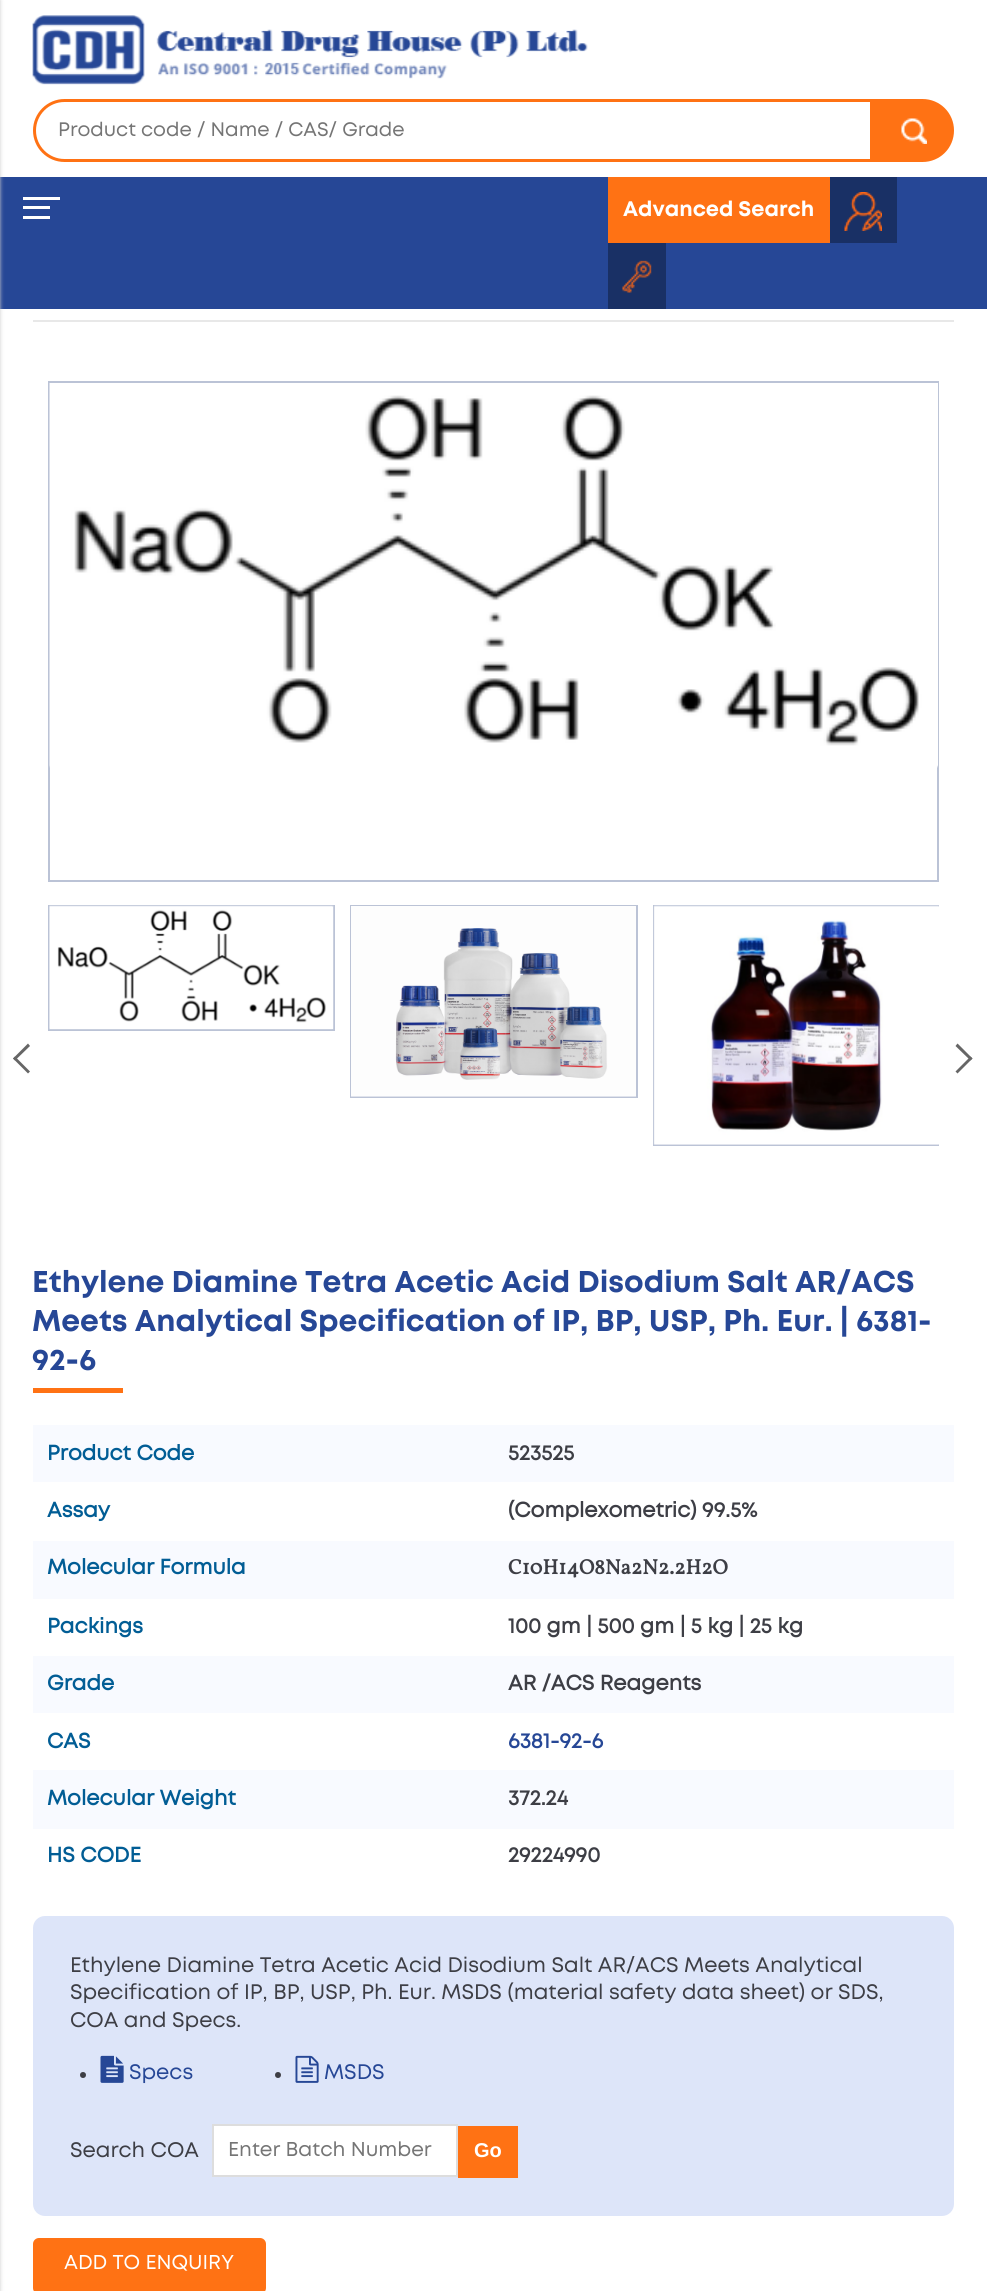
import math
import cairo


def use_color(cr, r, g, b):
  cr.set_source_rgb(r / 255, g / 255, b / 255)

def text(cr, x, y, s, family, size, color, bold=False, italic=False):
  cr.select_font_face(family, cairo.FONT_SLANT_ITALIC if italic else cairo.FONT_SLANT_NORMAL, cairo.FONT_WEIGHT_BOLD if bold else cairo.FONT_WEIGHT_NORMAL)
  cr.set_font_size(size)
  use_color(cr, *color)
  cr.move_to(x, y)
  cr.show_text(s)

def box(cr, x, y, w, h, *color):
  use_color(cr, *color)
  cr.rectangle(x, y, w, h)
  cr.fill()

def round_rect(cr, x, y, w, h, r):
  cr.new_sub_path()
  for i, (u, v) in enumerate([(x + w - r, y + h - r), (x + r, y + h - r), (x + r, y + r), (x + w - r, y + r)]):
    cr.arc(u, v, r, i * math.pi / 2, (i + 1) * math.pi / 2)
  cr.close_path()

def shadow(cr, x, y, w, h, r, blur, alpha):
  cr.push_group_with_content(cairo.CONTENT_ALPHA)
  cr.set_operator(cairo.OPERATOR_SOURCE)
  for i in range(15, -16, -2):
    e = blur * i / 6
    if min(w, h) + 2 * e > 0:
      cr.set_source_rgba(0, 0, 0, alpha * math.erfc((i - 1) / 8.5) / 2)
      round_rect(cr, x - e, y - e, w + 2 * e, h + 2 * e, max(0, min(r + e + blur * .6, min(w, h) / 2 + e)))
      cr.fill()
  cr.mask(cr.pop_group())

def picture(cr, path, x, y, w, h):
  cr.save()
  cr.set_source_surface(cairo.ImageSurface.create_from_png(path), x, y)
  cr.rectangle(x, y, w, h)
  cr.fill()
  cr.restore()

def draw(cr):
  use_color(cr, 255, 255, 255)
  cr.paint()
  picture(cr, "img_01.png", 32, 15, 556, 70)
  cr.new_path()
  cr.move_to(64.5, 100.5)
  cr.line_to(871.5, 100.5)
  cr.line_to(871.5, 160.5)
  cr.line_to(64.5, 160.5)
  cr.curve_to(48, 160.5, 34.5, 147, 34.5, 130.5)
  cr.curve_to(34.5, 114, 48, 100.5, 64.5, 100.5)
  cr.close_path()
  use_color(cr, 255, 114, 20)
  cr.set_line_width(3)
  cr.stroke()
  cr.new_path()
  cr.move_to(873, 99)
  cr.line_to(922.5, 99)
  cr.curve_to(940, 99, 954, 113, 954, 130.5)
  cr.curve_to(954, 148, 940, 162, 922.5, 162)
  cr.line_to(873, 162)
  cr.close_path()
  cr.fill()
  picture(cr, "img_02.png", 901, 118, 26, 26)
  box(cr, 0, 177, 987, 132, 38, 71, 150)
  use_color(cr, 204, 204, 204)
  shadow(cr, -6, 0, 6, 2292, 0, 2, 1)
  box(cr, 23, 206, 27, 3, 255, 255, 255)
  box(cr, 23, 197, 37, 3, 255, 255, 255)
  box(cr, 23, 216, 27, 3, 255, 255, 255)
  box(cr, 608, 177, 222, 66, 255, 114, 20)
  box(cr, 830, 177, 67, 66, 25, 48, 101)
  picture(cr, "img_03.png", 844, 192, 38, 39)
  box(cr, 608, 243, 58, 66, 25, 48, 101)
  picture(cr, "img_04.png", 622, 260, 30, 33)
  box(cr, 33, 320, 921, 2, 232, 232, 232)
  cr.rectangle(49, 382, 889, 499)
  use_color(cr, 187, 195, 214)
  cr.set_line_width(2)
  cr.stroke()
  picture(cr, "img_05.png", 49, 383, 889, 385)
  cr.rectangle(49, 906, 285, 124)
  cr.stroke()
  picture(cr, "img_06.png", 49, 905, 285, 125)
  cr.rectangle(351, 906, 286, 191)
  cr.stroke()
  picture(cr, "img_07.png", 351, 906, 285, 191)
  cr.save()
  cr.rectangle(48, 905, 891, 298)
  cr.clip()
  cr.rectangle(654, 906, 286, 239)
  cr.stroke()
  cr.restore()
  picture(cr, "img_08.png", 653, 905, 286, 240)
  use_color(cr, 102, 102, 102)
  cr.new_path()
  cr.move_to(28, 1073.5)
  cr.line_to(13, 1058.5)
  cr.line_to(15, 1056.5)
  cr.line_to(30, 1071.5)
  cr.close_path()
  cr.fill()
  cr.new_path()
  cr.move_to(15, 1060.5)
  cr.line_to(13, 1058.5)
  cr.line_to(28, 1043.5)
  cr.line_to(30, 1046)
  cr.close_path()
  cr.fill()
  cr.new_path()
  cr.move_to(957.5, 1043.5)
  cr.line_to(972.5, 1058.5)
  cr.line_to(970.5, 1060.5)
  cr.line_to(955.5, 1046)
  cr.close_path()
  cr.fill()
  cr.new_path()
  cr.move_to(970.5, 1056.5)
  cr.line_to(972.5, 1058.5)
  cr.line_to(957.5, 1073.5)
  cr.line_to(955.5, 1071.5)
  cr.close_path()
  cr.fill()
  box(cr, 33, 1388, 90, 5, 255, 114, 20)
  box(cr, 33, 1425, 921, 57, 248, 250, 255)
  box(cr, 33, 1541, 921, 58, 248, 250, 255)
  box(cr, 33, 1656, 921, 57, 248, 250, 255)
  box(cr, 33, 1770, 921, 59, 248, 250, 255)
  use_color(cr, 221, 229, 249)
  round_rect(cr, 33, 1916, 921, 300, 12)
  cr.fill()
  use_color(cr, 61, 62, 69)
  cr.arc(83, 2075, 3, 0, 2 * math.pi)
  cr.fill()
  picture(cr, "img_09.png", 100, 2055, 24, 28)
  cr.arc(278, 2075, 3, 0, 2 * math.pi)
  cr.fill()
  picture(cr, "img_10.png", 295, 2055, 24, 28)
  use_color(cr, 255, 255, 255)
  cr.rectangle(213, 2125, 244, 51)
  cr.fill_preserve()
  use_color(cr, 221, 221, 221)
  cr.stroke()
  box(cr, 458, 2126, 60, 52, 255, 114, 20)
  round_rect(cr, 34, 2239, 231, 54, 5)
  cr.fill_preserve()
  cr.stroke()
  text(cr, 58, 136, "Product code / Name / CAS/ Grade", "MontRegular", 19.5, (117, 117, 117))
  text(cr, 623, 216, "Advanced Search", "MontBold", 21, (255, 255, 255), bold=True)
  text(cr, 32, 1292, "Ethylene Diamine Tetra Acetic Acid Disodium Salt AR/ACS", "MontBold", 30, (38, 71, 150), bold=True)
  text(cr, 32, 1331, "Meets Analytical Specification of IP, BP, USP, Ph. Eur. | 6381-", "MontBold", 30, (38, 71, 150), bold=True)
  text(cr, 32, 1370, "92-6", "MontBold", 30, (38, 71, 150), bold=True)
  text(cr, 47, 1460, "Product Code", "MontRegular", 21, (1, 93, 149), bold=True)
  text(cr, 508, 1460, "523525", "MontRegular", 21, (61, 62, 69), bold=True)
  text(cr, 47, 1517, "Assay", "MontRegular", 21, (1, 93, 149), bold=True)
  text(cr, 508, 1517, "(Complexometric) 99.5%", "MontRegular", 21, (61, 62, 69), bold=True)
  text(cr, 47, 1574, "Molecular Formula", "MontRegular", 21, (1, 93, 149), bold=True)
  text(cr, 508, 1574, "C10H14O8Na2N2.2H2O", "Vollkorn", 21, (61, 62, 69), bold=True)
  text(cr, 47, 1633, "Packings", "MontRegular", 21, (1, 93, 149), bold=True)
  text(cr, 508, 1633, "100 gm | 500 gm | 5 kg | 25 kg", "MontRegular", 21, (61, 62, 69), bold=True)
  text(cr, 47, 1690, "Grade", "MontRegular", 21, (1, 93, 149), bold=True)
  text(cr, 508, 1690, "AR /ACS Reagents", "MontRegular", 21, (61, 62, 69), bold=True)
  text(cr, 47, 1748, "CAS", "MontRegular", 21, (1, 93, 149), bold=True)
  text(cr, 508, 1748, "6381-92-6", "MontRegular", 21, (38, 71, 150), bold=True)
  text(cr, 47, 1805, "Molecular Weight", "MontRegular", 21, (1, 93, 149), bold=True)
  text(cr, 508, 1805, "372.24", "MontRegular", 21, (61, 62, 69), bold=True)
  text(cr, 47, 1862, "HS CODE", "MontRegular", 21, (1, 93, 149), bold=True)
  text(cr, 508, 1862, "29224990", "MontRegular", 21, (61, 62, 69), bold=True)
  text(cr, 70, 1972, "Ethylene Diamine Tetra Acetic Acid Disodium Salt AR/ACS Meets Analytical", "MontRegular", 21, (61, 62, 69))
  text(cr, 70, 1999, "Specification of IP, BP, USP, Ph. Eur. MSDS (material safety data sheet) or SDS,", "MontRegular", 21, (61, 62, 69))
  text(cr, 70, 2027, "COA and Specs.", "MontRegular", 21, (61, 62, 69))
  text(cr, 129, 2079, "Specs", "MontRegular", 21, (38, 71, 150))
  text(cr, 324, 2079, "MSDS", "MontRegular", 21, (38, 71, 150))
  text(cr, 70, 2157, "Search COA", "MontRegular", 21, (61, 62, 69))
  text(cr, 228, 2156, "Enter Batch Number", "MontRegular", 20, (117, 117, 117))
  text(cr, 474, 2157, "Go", "Liberation Sans", 20, (255, 255, 255), bold=True)
  text(cr, 64, 2269, "ADD TO ENQUIRY", "MontRegular", 20, (255, 255, 255))


surface = cairo.ImageSurface(cairo.FORMAT_RGB24, 987, 2291)
cr = cairo.Context(surface)
options = cairo.FontOptions()
options.set_hint_metrics(cairo.HINT_METRICS_OFF)
options.set_hint_style(cairo.HINT_STYLE_NONE)
cr.set_font_options(options)
cr.set_miter_limit(4)
draw(cr)
surface.write_to_png("out.png")
